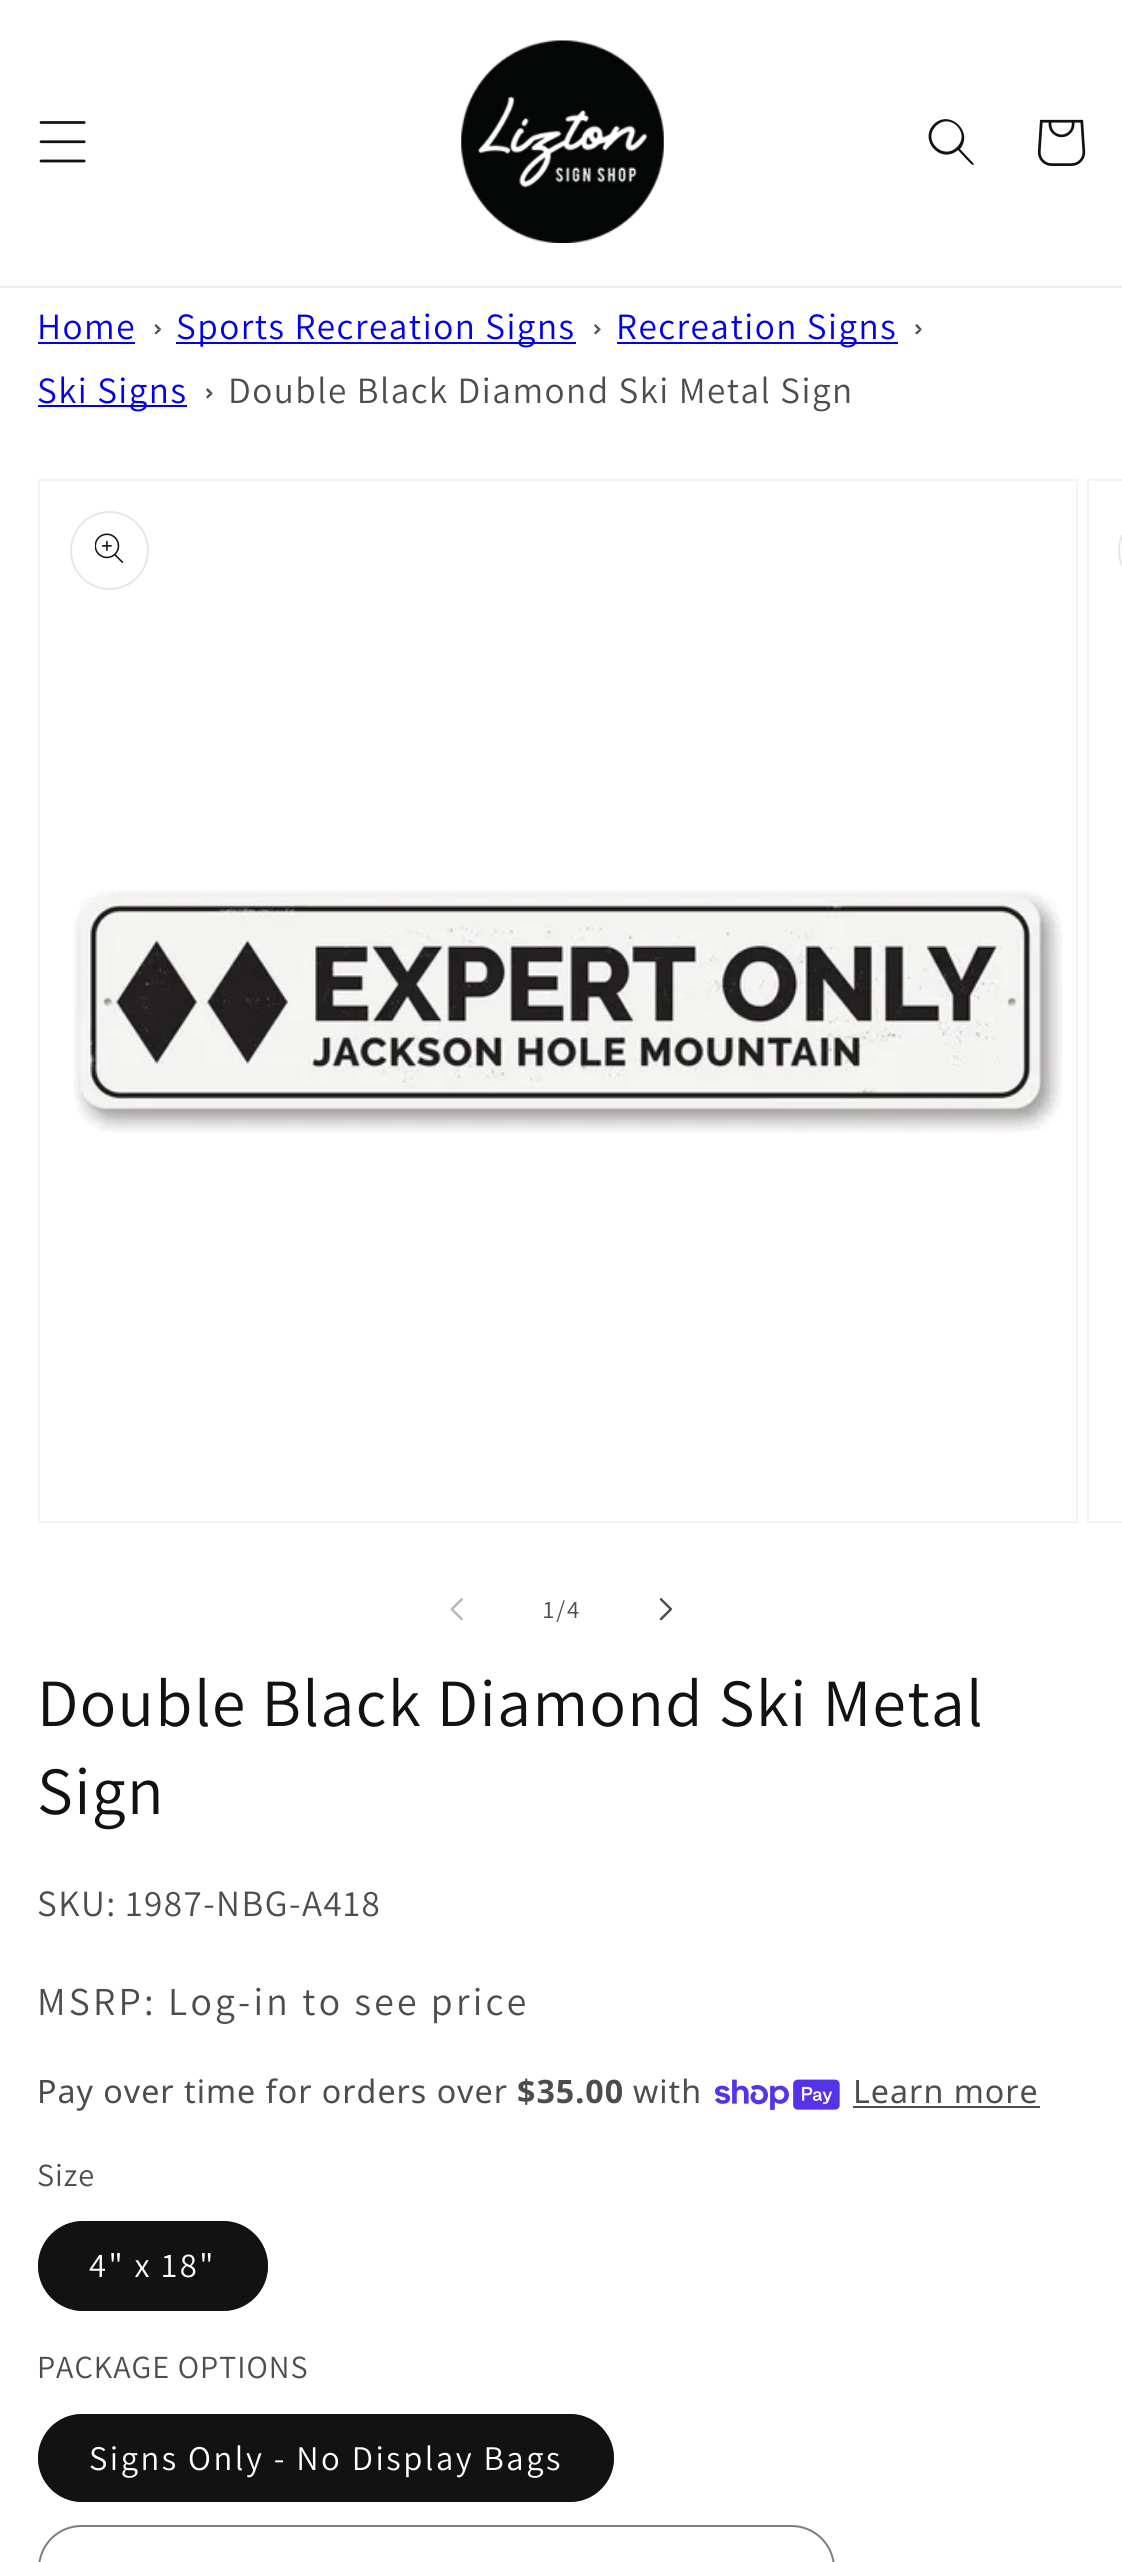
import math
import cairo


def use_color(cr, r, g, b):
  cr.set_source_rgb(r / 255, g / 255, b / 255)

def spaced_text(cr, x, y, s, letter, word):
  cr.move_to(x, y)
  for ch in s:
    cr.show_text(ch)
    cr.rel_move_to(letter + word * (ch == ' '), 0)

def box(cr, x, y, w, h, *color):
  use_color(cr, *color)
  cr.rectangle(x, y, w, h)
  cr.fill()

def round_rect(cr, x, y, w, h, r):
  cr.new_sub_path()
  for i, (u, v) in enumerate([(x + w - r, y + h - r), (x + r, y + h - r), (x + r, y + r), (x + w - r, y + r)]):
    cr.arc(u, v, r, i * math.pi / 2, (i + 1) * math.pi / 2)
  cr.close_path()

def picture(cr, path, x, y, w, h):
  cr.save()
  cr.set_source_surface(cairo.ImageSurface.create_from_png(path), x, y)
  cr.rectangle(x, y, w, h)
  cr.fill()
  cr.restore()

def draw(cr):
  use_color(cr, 255, 255, 255)
  cr.paint()
  box(cr, 0, 286, 1122, 2, 236, 236, 236)
  picture(cr, "img_01.png", 39, 121, 47, 42)
  picture(cr, "img_02.png", 461, 40, 203, 203)
  use_color(cr, 18, 18, 18)
  cr.set_fill_rule(cairo.FILL_RULE_EVEN_ODD)
  cr.new_path()
  cr.move_to(957, 147)
  cr.curve_to(943, 161, 922, 140, 936, 126)
  cr.curve_to(950, 112, 971, 133, 957, 147)
  cr.close_path()
  cr.move_to(958, 150)
  cr.curve_to(941, 165, 918, 140, 934, 124)
  cr.curve_to(950, 109, 974, 132, 960, 149)
  cr.line_to(974, 164)
  cr.line_to(973, 165)
  cr.curve_to(972, 166, 960, 152, 958, 150)
  cr.close_path()
  cr.fill()
  picture(cr, "img_03.png", 1037, 119, 49, 47)
  box(cr, 38, 342, 97, 2, 0, 0, 238)
  use_color(cr, 77, 77, 77)
  cr.set_fill_rule(cairo.FILL_RULE_WINDING)
  cr.new_path()
  cr.move_to(156, 324)
  cr.line_to(161.5, 329.5)
  cr.line_to(158, 329.5)
  cr.line_to(154.5, 325.5)
  cr.close_path()
  cr.fill()
  cr.new_path()
  cr.move_to(161.5, 329.5)
  cr.line_to(156, 334.5)
  cr.line_to(154.5, 333)
  cr.line_to(158, 329.5)
  cr.close_path()
  cr.fill()
  box(cr, 176, 342, 400, 2, 0, 0, 238)
  use_color(cr, 77, 77, 77)
  cr.new_path()
  cr.move_to(595.5, 324)
  cr.line_to(601, 329.5)
  cr.line_to(597.5, 329.5)
  cr.line_to(594, 325.5)
  cr.close_path()
  cr.fill()
  cr.new_path()
  cr.move_to(601, 329.5)
  cr.line_to(595.5, 334.5)
  cr.line_to(594, 333)
  cr.line_to(597.5, 329.5)
  cr.close_path()
  cr.fill()
  box(cr, 617, 342, 281, 2, 0, 0, 238)
  use_color(cr, 77, 77, 77)
  cr.new_path()
  cr.move_to(917, 324)
  cr.line_to(922, 329.5)
  cr.line_to(919, 329.5)
  cr.line_to(915, 325.5)
  cr.close_path()
  cr.fill()
  cr.new_path()
  cr.move_to(922, 329.5)
  cr.line_to(917, 334.5)
  cr.line_to(915, 333)
  cr.line_to(919, 329.5)
  cr.close_path()
  cr.fill()
  box(cr, 38, 405, 149, 2, 0, 0, 238)
  use_color(cr, 77, 77, 77)
  cr.new_path()
  cr.move_to(207.5, 388)
  cr.line_to(213, 393.5)
  cr.line_to(209.5, 393.5)
  cr.line_to(206, 390)
  cr.close_path()
  cr.fill()
  cr.new_path()
  cr.move_to(213, 393.5)
  cr.line_to(207.5, 398.5)
  cr.line_to(206, 397)
  cr.line_to(209.5, 393.5)
  cr.close_path()
  cr.fill()
  cr.rectangle(39, 480, 1038, 1042)
  use_color(cr, 243, 243, 243)
  cr.stroke()
  picture(cr, "img_04.png", 73, 890, 990, 243)
  cr.arc(109.5, 550.5, 38.5, 0, 2 * math.pi)
  use_color(cr, 231, 231, 231)
  cr.stroke()
  picture(cr, "img_05.png", 95, 533, 29, 30)
  cr.rectangle(1088, 480, 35, 1042)
  use_color(cr, 243, 243, 243)
  cr.stroke()
  round_rect(cr, 1119, 512, 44, 77, 38.5)
  use_color(cr, 231, 231, 231)
  cr.stroke()
  picture(cr, "img_06.png", 450, 1598, 13, 23)
  picture(cr, "img_07.png", 659, 1598, 14, 23)
  picture(cr, "img_08.png", 715, 2079, 125, 31)
  box(cr, 853, 2106, 187, 2, 77, 77, 77)
  use_color(cr, 18, 18, 18)
  round_rect(cr, 38, 2221, 230, 90, 45)
  cr.fill()
  round_rect(cr, 39, 2222, 228, 88, 44)
  cr.set_source_rgba(0.071, 0.071, 0.071, 0.55)
  cr.stroke()
  use_color(cr, 18, 18, 18)
  round_rect(cr, 38, 2414, 576, 88, 44)
  cr.fill()
  round_rect(cr, 39, 2415, 574, 86, 43)
  cr.set_source_rgba(0.071, 0.071, 0.071, 0.55)
  cr.stroke()
  round_rect(cr, 39, 2526, 795, 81, 42.5)
  use_color(cr, 125, 125, 125)
  cr.stroke()
  cr.select_font_face("Assistant")
  cr.set_font_size(37.1)
  use_color(cr, 0, 0, 238)
  spaced_text(cr, 37, 339, "Home", 1.5, 0)
  spaced_text(cr, 176, 339, "Sports Recreation Signs", 1.5, 0)
  spaced_text(cr, 616, 339, "Recreation Signs", 1.5, 0)
  spaced_text(cr, 37, 403, "Ski Signs", 1.5, 0)
  use_color(cr, 77, 77, 77)
  spaced_text(cr, 228, 403, "Double Black Diamond Ski Metal Sign", 1.5, 0)
  cr.set_font_size(25)
  spaced_text(cr, 543, 1618, "1/4", 2, 0)
  cr.set_font_size(67.5)
  use_color(cr, 18, 18, 18)
  spaced_text(cr, 37, 1726, "Double Black Diamond Ski Metal", 1.35, 0)
  spaced_text(cr, 37, 1814, "Sign", 1.35, 0)
  cr.set_font_size(37.1)
  use_color(cr, 77, 77, 77)
  spaced_text(cr, 37, 1916, "SKU: 1987-NBG-A418", 1.5, 0)
  cr.set_font_size(39.6)
  spaced_text(cr, 37, 2015, "MSRP: Log-in to see price", 3.25, 0)
  cr.select_font_face("Noto Sans")
  cr.set_font_size(32.2)
  spaced_text(cr, 37, 2103, "Pay over time for orders over", 1, 0)
  cr.select_font_face("Noto Sans", cairo.FONT_SLANT_NORMAL, cairo.FONT_WEIGHT_BOLD)
  spaced_text(cr, 517, 2103, "$35.00", 1, 0)
  cr.select_font_face("Noto Sans")
  spaced_text(cr, 633, 2103, "with", 1, 0)
  spaced_text(cr, 853, 2103, "Learn more", 1, 0)
  cr.select_font_face("Assistant")
  spaced_text(cr, 37, 2186, "Size", 1, 0)
  cr.set_font_size(34.6)
  use_color(cr, 255, 255, 255)
  spaced_text(cr, 89, 2277, "4\" x 18\"", 2.5, 0)
  cr.set_font_size(32.2)
  use_color(cr, 77, 77, 77)
  spaced_text(cr, 37, 2378, "PACKAGE OPTIONS", 1, 0)
  cr.set_font_size(34.6)
  use_color(cr, 255, 255, 255)
  spaced_text(cr, 89, 2470, "Signs Only - No Display Bags", 2.5, 0)


surface = cairo.ImageSurface(cairo.FORMAT_RGB24, 1122, 2562)
cr = cairo.Context(surface)
options = cairo.FontOptions()
options.set_hint_metrics(cairo.HINT_METRICS_OFF)
options.set_hint_style(cairo.HINT_STYLE_NONE)
cr.set_font_options(options)
cr.set_miter_limit(4)
draw(cr)
surface.write_to_png("out.png")
